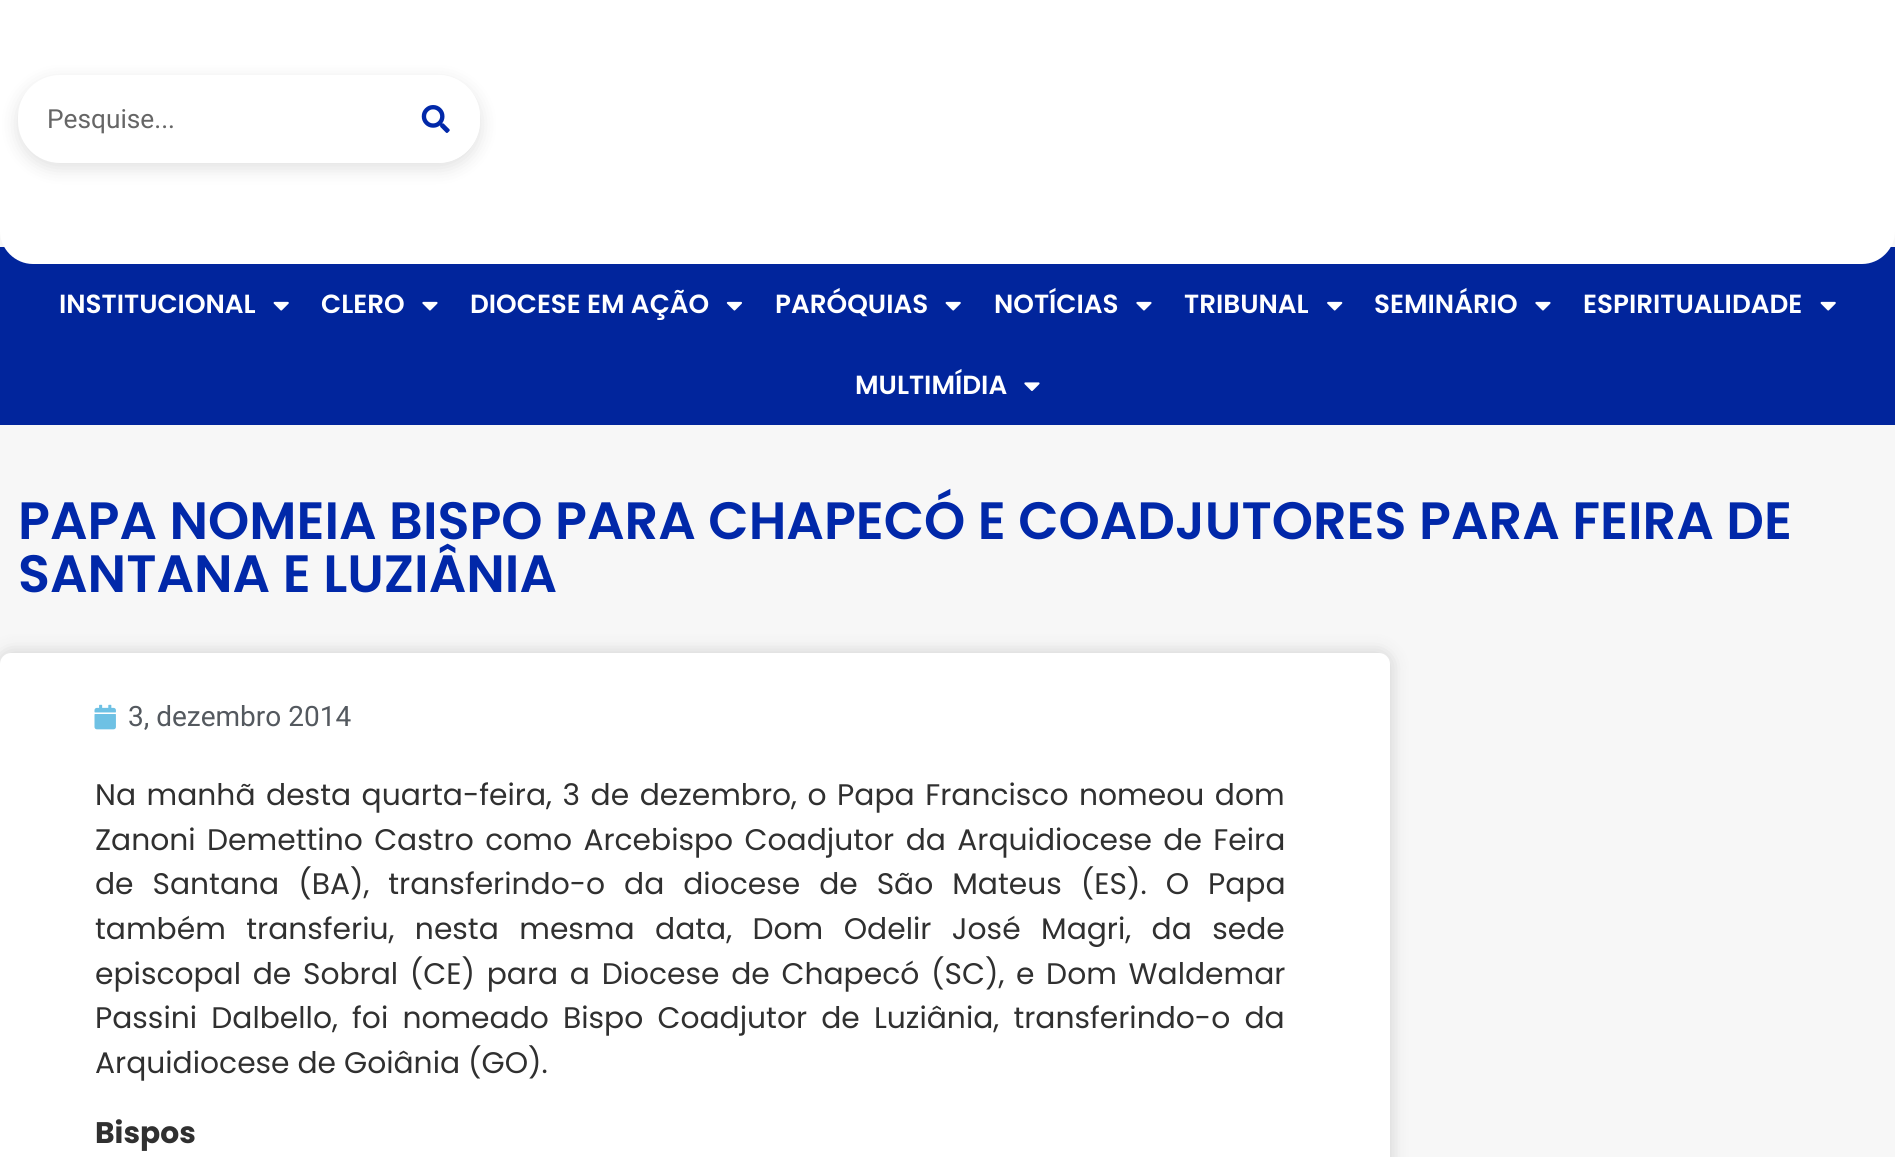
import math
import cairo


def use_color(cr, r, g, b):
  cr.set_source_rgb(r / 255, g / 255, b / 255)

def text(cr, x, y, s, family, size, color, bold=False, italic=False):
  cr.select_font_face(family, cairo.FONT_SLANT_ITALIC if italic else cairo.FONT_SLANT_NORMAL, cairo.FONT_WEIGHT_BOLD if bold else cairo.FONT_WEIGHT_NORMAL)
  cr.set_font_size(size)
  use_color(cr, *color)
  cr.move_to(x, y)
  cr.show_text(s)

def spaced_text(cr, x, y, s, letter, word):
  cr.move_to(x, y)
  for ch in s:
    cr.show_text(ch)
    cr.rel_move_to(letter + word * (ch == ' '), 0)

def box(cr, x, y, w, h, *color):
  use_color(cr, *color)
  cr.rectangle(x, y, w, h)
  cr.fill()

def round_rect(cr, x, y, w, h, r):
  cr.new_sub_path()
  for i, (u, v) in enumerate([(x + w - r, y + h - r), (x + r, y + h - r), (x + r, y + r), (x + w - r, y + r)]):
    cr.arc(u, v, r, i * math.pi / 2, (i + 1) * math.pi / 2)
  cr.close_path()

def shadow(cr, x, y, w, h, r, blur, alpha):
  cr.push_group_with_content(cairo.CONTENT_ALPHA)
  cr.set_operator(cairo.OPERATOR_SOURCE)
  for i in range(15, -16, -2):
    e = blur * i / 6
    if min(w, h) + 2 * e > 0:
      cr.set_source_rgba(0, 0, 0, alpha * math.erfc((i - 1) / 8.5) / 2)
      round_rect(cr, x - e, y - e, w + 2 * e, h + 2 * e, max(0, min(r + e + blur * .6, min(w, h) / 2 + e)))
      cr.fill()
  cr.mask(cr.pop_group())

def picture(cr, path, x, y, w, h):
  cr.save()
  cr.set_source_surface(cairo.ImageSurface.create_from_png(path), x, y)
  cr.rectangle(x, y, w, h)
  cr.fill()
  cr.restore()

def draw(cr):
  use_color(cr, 247, 247, 247)
  cr.paint()
  box(cr, 0, 247, 1895, 178, 1, 37, 156)
  use_color(cr, 255, 255, 255)
  cr.new_path()
  cr.move_to(0, 0)
  cr.line_to(1895, 0)
  cr.line_to(1895, 231)
  cr.curve_to(1895, 249, 1880, 264, 1862, 264)
  cr.line_to(33, 264)
  cr.curve_to(15, 264, 0, 249, 0, 231)
  cr.close_path()
  cr.fill()
  use_color(cr, 0, 0, 0)
  shadow(cr, 18, 81, 462, 87, 42, 9, 0.13)
  use_color(cr, 255, 255, 255)
  round_rect(cr, 18, 75, 462, 88, 42)
  cr.fill()
  cr.new_path()
  cr.move_to(392, 75)
  cr.line_to(438, 75)
  cr.curve_to(461, 75, 480, 94, 480, 117)
  cr.line_to(480, 121)
  cr.curve_to(480, 144, 461, 163, 438, 163)
  cr.line_to(392, 163)
  cr.close_path()
  cr.fill()
  picture(cr, "img_01.png", 421, 105, 29, 28)
  picture(cr, "img_02.png", 273, 301, 16, 10)
  picture(cr, "img_03.png", 422, 301, 16, 10)
  picture(cr, "img_04.png", 726, 301, 16, 10)
  picture(cr, "img_02.png", 945, 301, 16, 10)
  picture(cr, "img_03.png", 1136, 301, 16, 10)
  picture(cr, "img_05.png", 1327, 301, 16, 10)
  picture(cr, "img_03.png", 1535, 301, 16, 10)
  picture(cr, "img_02.png", 1820, 301, 16, 10)
  picture(cr, "img_06.png", 1024, 382, 16, 9)
  use_color(cr, 0, 0, 0)
  shadow(cr, 0, 653, 1390, 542, 11, 9, 0.17)
  use_color(cr, 255, 255, 255)
  round_rect(cr, 0, 653, 1390, 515, 11)
  cr.fill()
  picture(cr, "img_07.png", 94, 704, 22, 26)
  text(cr, 47, 128, "Pesquise...", "Roboto", 26.25, (102, 102, 102))
  text(cr, 59, 313, "INSTITUCIONAL", "Poppins SemiBold", 26.25, (255, 255, 255))
  text(cr, 321, 313, "CLERO", "Poppins SemiBold", 26.25, (255, 255, 255))
  text(cr, 470, 313, "DIOCESE EM AÇÃO", "Poppins SemiBold", 26.25, (255, 255, 255))
  text(cr, 775, 313, "PARÓQUIAS", "Poppins SemiBold", 26.25, (255, 255, 255))
  text(cr, 994, 313, "NOTÍCIAS", "Poppins SemiBold", 26.25, (255, 255, 255))
  text(cr, 1184, 313, "TRIBUNAL", "Poppins SemiBold", 26.25, (255, 255, 255))
  text(cr, 1374, 313, "SEMINÁRIO", "Poppins SemiBold", 26.25, (255, 255, 255))
  text(cr, 1583, 313, "ESPIRITUALIDADE", "Poppins SemiBold", 26.25, (255, 255, 255))
  text(cr, 855, 394, "MULTIMÍDIA", "Poppins SemiBold", 26.25, (255, 255, 255))
  text(cr, 18, 539, "PAPA NOMEIA BISPO PARA CHAPECÓ E COADJUTORES PARA FEIRA DE", "Poppins SemiBold", 52.5, (1, 40, 169))
  text(cr, 18, 592, "SANTANA E LUZIÂNIA", "Poppins SemiBold", 52.5, (1, 40, 169))
  text(cr, 128, 726, "3, dezembro 2014", "Roboto", 28, (84, 89, 95))
  cr.select_font_face("Poppins")
  cr.set_font_size(29.75)
  use_color(cr, 48, 48, 48)
  spaced_text(cr, 95, 805, "Na manhã desta quarta-feira, 3 de dezembro, o Papa Francisco nomeou dom", 0, 2.6)
  spaced_text(cr, 95, 850, "Zanoni Demettino Castro como Arcebispo Coadjutor da Arquidiocese de Feira", 0, 3.5)
  spaced_text(cr, 95, 894, "de Santana (BA), transferindo-o da diocese de São Mateus (ES). O Papa", 0, 11)
  spaced_text(cr, 95, 939, "também transferiu, nesta mesma data, Dom Odelir José Magri, da sede", 0, 12.5)
  spaced_text(cr, 95, 984, "episcopal de Sobral (CE) para a Diocese de Chapecó (SC), e Dom Waldemar", 0, 3.75)
  spaced_text(cr, 95, 1028, "Passini Dalbello, foi nomeado Bispo Coadjutor de Luziânia, transferindo-o da", 0, 6.25)
  text(cr, 95, 1073, "Arquidiocese de Goiânia (GO).", "Poppins", 29.75, (48, 48, 48))
  text(cr, 95, 1143, "Bispos", "Poppins", 29.75, (48, 48, 48), bold=True)


surface = cairo.ImageSurface(cairo.FORMAT_RGB24, 1895, 1157)
cr = cairo.Context(surface)
options = cairo.FontOptions()
options.set_hint_metrics(cairo.HINT_METRICS_OFF)
options.set_hint_style(cairo.HINT_STYLE_NONE)
cr.set_font_options(options)
cr.set_miter_limit(4)
draw(cr)
surface.write_to_png("out.png")
